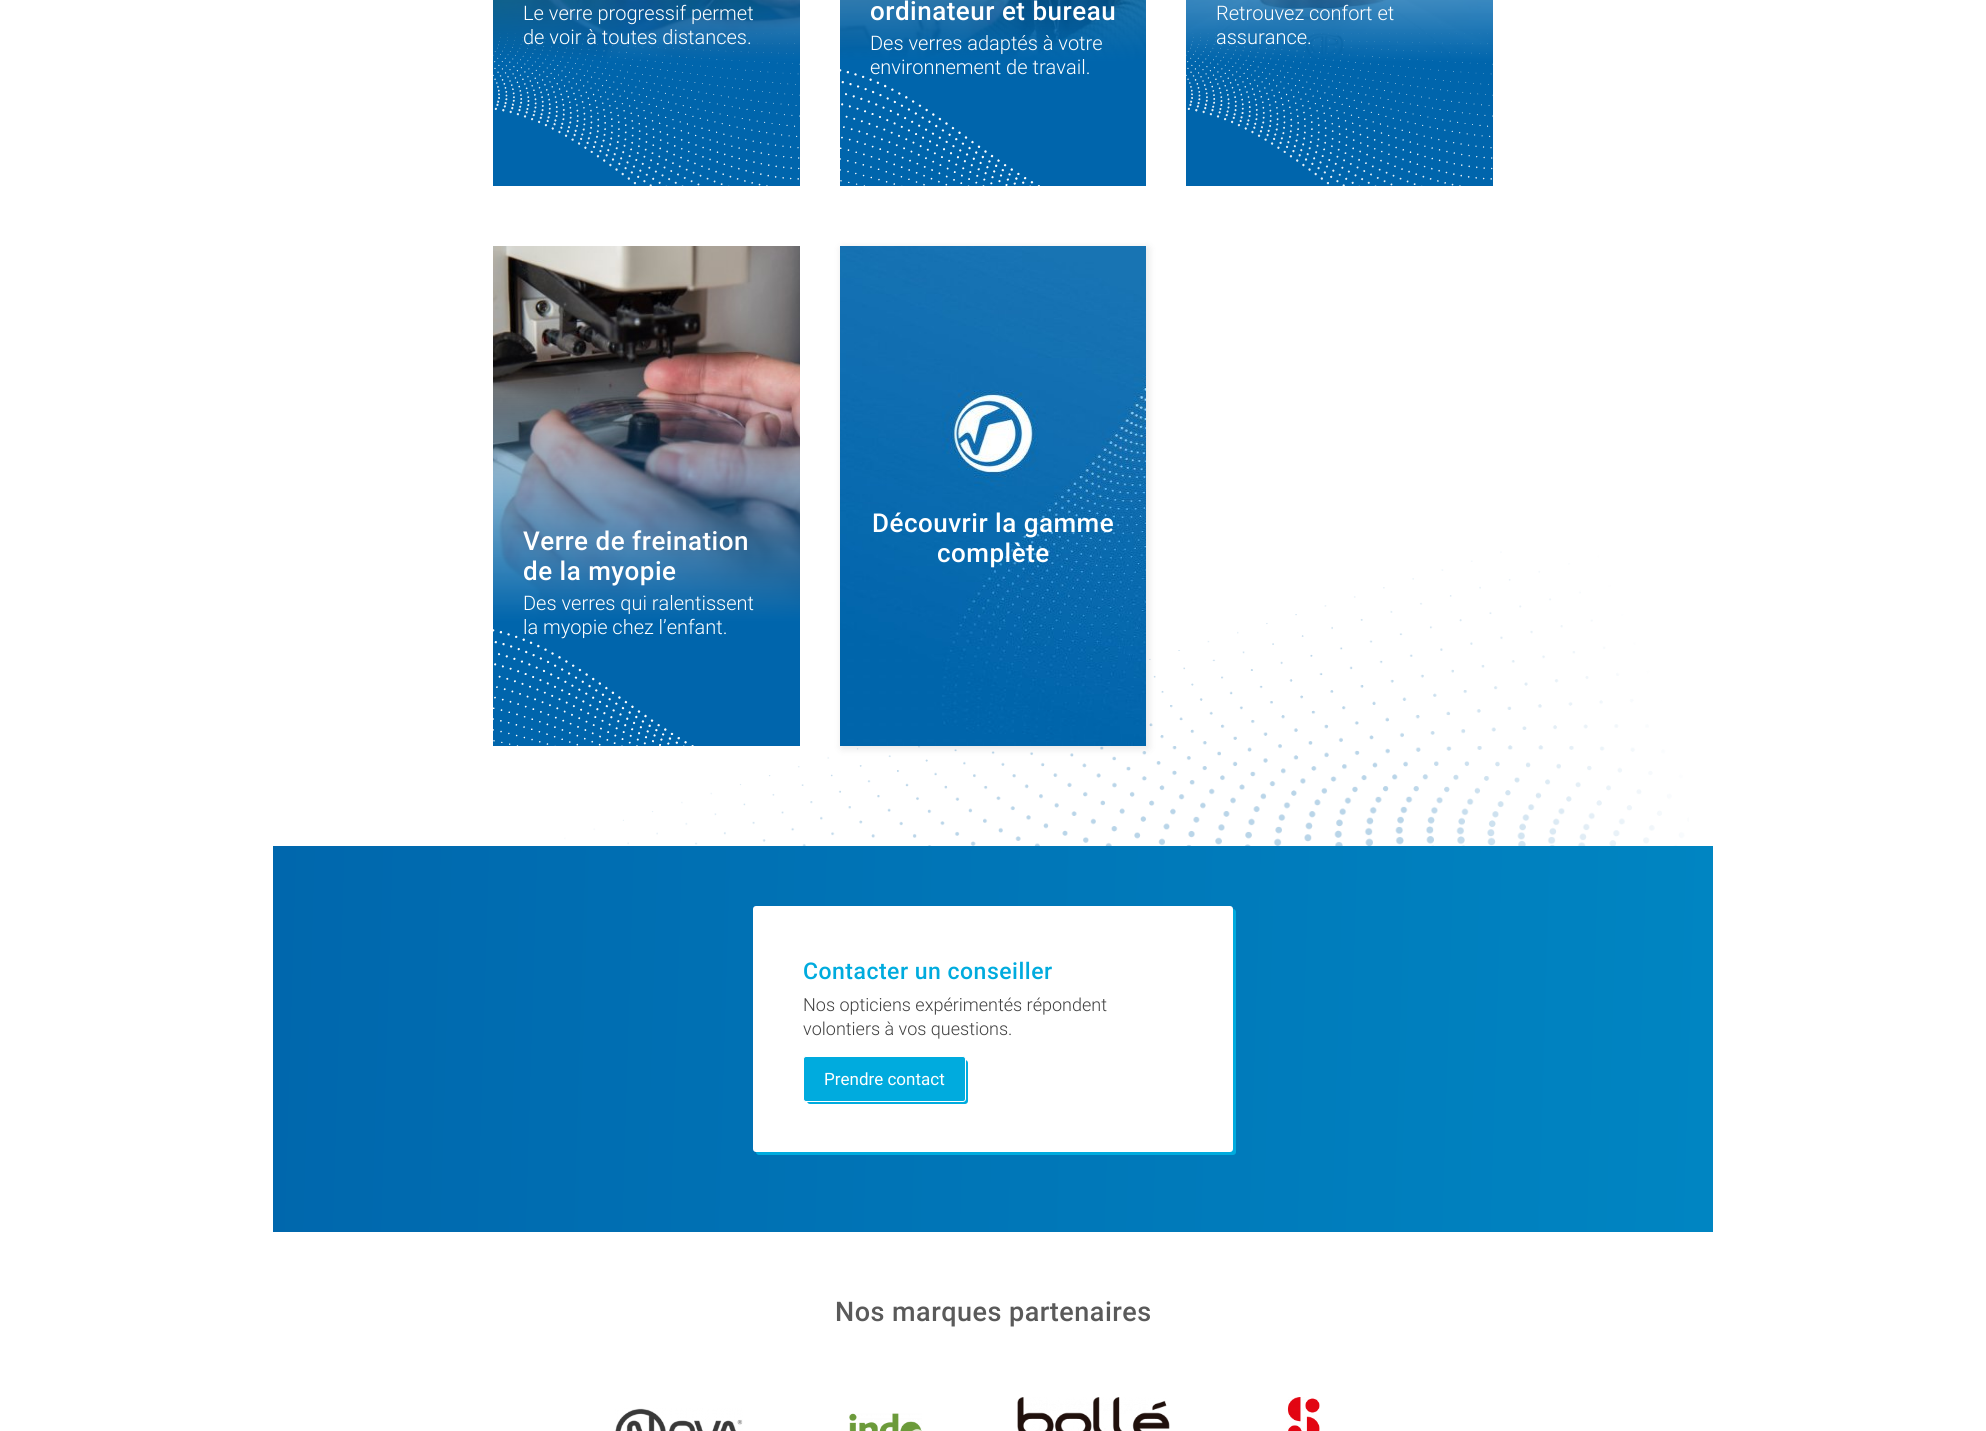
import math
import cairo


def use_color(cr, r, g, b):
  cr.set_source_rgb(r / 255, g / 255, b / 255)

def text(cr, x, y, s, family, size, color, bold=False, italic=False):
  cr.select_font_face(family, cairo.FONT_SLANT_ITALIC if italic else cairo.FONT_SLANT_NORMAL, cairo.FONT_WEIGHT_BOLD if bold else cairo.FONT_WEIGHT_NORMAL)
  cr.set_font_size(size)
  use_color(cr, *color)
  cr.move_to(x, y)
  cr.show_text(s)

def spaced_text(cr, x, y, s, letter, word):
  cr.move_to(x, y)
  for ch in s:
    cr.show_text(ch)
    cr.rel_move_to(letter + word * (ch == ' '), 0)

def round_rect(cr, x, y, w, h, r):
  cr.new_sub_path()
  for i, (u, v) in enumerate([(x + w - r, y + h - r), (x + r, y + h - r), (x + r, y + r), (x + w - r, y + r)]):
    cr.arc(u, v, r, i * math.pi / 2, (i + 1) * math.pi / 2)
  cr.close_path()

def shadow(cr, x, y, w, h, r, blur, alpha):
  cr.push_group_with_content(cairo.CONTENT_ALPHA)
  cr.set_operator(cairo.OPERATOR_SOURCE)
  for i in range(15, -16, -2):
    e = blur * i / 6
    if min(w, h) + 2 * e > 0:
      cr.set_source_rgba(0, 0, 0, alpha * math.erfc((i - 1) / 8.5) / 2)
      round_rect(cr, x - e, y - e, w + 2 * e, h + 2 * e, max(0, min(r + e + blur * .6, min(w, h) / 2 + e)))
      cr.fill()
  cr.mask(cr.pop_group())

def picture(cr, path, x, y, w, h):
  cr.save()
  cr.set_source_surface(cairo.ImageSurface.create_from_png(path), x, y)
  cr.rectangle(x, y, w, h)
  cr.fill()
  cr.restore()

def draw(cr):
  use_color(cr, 255, 255, 255)
  cr.paint()
  picture(cr, "img_01.png", 493, 0, 307, 186)
  picture(cr, "img_02.png", 493, 33, 307, 153)
  picture(cr, "img_03.png", 840, 0, 306, 186)
  picture(cr, "img_04.png", 840, 69, 200, 117)
  picture(cr, "img_05.png", 1186, 0, 307, 186)
  picture(cr, "img_06.png", 1186, 33, 307, 153)
  picture(cr, "img_10.png", 564, 551, 1125, 295)
  picture(cr, "img_07.png", 493, 246, 307, 500)
  picture(cr, "img_08.png", 493, 629, 201, 117)
  use_color(cr, 0, 0, 0)
  shadow(cr, 842, 248, 306, 500, 0, 4.5, 0.11)
  picture(cr, "img_09.png", 840, 246, 306, 500)
  gradient = cairo.LinearGradient(1718, 1061, 268, 1017)
  gradient.add_color_stop_rgba(0, 0, 0.522, 0.761, 1)
  gradient.add_color_stop_rgba(1, 0, 0.404, 0.678, 1)
  cr.set_source(gradient)
  cr.rectangle(273, 846, 1440, 386)
  cr.fill()
  use_color(cr, 0, 171, 222)
  round_rect(cr, 756, 909, 480, 246, 3)
  cr.fill()
  use_color(cr, 255, 255, 255)
  round_rect(cr, 753, 906, 480, 246, 3)
  cr.fill()
  use_color(cr, 0, 171, 222)
  round_rect(cr, 807, 1060, 161, 44, 3)
  cr.fill()
  round_rect(cr, 803.5, 1056.5, 162, 45, 2.5)
  cr.fill_preserve()
  use_color(cr, 255, 255, 255)
  cr.set_line_width(1)
  cr.stroke()
  picture(cr, "img_11.png", 615, 1408, 128, 23)
  picture(cr, "img_12.png", 849, 1413, 73, 18)
  picture(cr, "img_13.png", 1017, 1397, 153, 34)
  picture(cr, "img_14.png", 1287, 1397, 33, 34)
  text(cr, 523, 20, "Le verre progressif permet", "Roboto Light", 20, (255, 255, 255))
  text(cr, 523, 44, "de voir à toutes distances.", "Roboto Light", 20, (255, 255, 255))
  cr.select_font_face("Roboto Medium")
  cr.set_font_size(26)
  spaced_text(cr, 870, 20, "ordinateur et bureau", 0.5, 0)
  text(cr, 870, 50, "Des verres adaptés à votre", "Roboto Light", 20, (255, 255, 255))
  text(cr, 870, 74, "environnement de travail.", "Roboto Light", 20, (255, 255, 255))
  text(cr, 1216, 20, "Retrouvez confort et", "Roboto Light", 20, (255, 255, 255))
  text(cr, 1216, 44, "assurance.", "Roboto Light", 20, (255, 255, 255))
  cr.select_font_face("Roboto Medium")
  cr.set_font_size(26)
  spaced_text(cr, 523, 550, "Verre de freination", 0.5, 0)
  spaced_text(cr, 523, 580, "de la myopie", 0.5, 0)
  text(cr, 523, 610, "Des verres qui ralentissent", "Roboto Light", 20, (255, 255, 255))
  text(cr, 523, 634, "la myopie chez l’enfant.", "Roboto Light", 20, (255, 255, 255))
  cr.select_font_face("Roboto Medium")
  cr.set_font_size(26)
  spaced_text(cr, 872, 532, "Découvrir la gamme", 0.5, 0)
  spaced_text(cr, 937, 562, "complète", 0.5, 0)
  cr.set_font_size(23)
  use_color(cr, 0, 171, 222)
  spaced_text(cr, 803, 979, "Contacter un conseiller", 0.5, 0)
  text(cr, 803, 1011, "Nos opticiens expérimentés répondent", "Roboto Light", 18, (64, 64, 64))
  text(cr, 803, 1035, "volontiers à vos questions.", "Roboto Light", 18, (64, 64, 64))
  text(cr, 824, 1085, "Prendre contact", "Roboto", 17, (255, 255, 255))
  cr.select_font_face("Roboto Medium")
  cr.set_font_size(27)
  use_color(cr, 90, 90, 90)
  spaced_text(cr, 835, 1321, "Nos marques partenaires", 0.5, 0)


surface = cairo.ImageSurface(cairo.FORMAT_RGB24, 1986, 1431)
cr = cairo.Context(surface)
options = cairo.FontOptions()
options.set_hint_metrics(cairo.HINT_METRICS_OFF)
options.set_hint_style(cairo.HINT_STYLE_NONE)
cr.set_font_options(options)
cr.set_miter_limit(4)
draw(cr)
surface.write_to_png("out.png")
